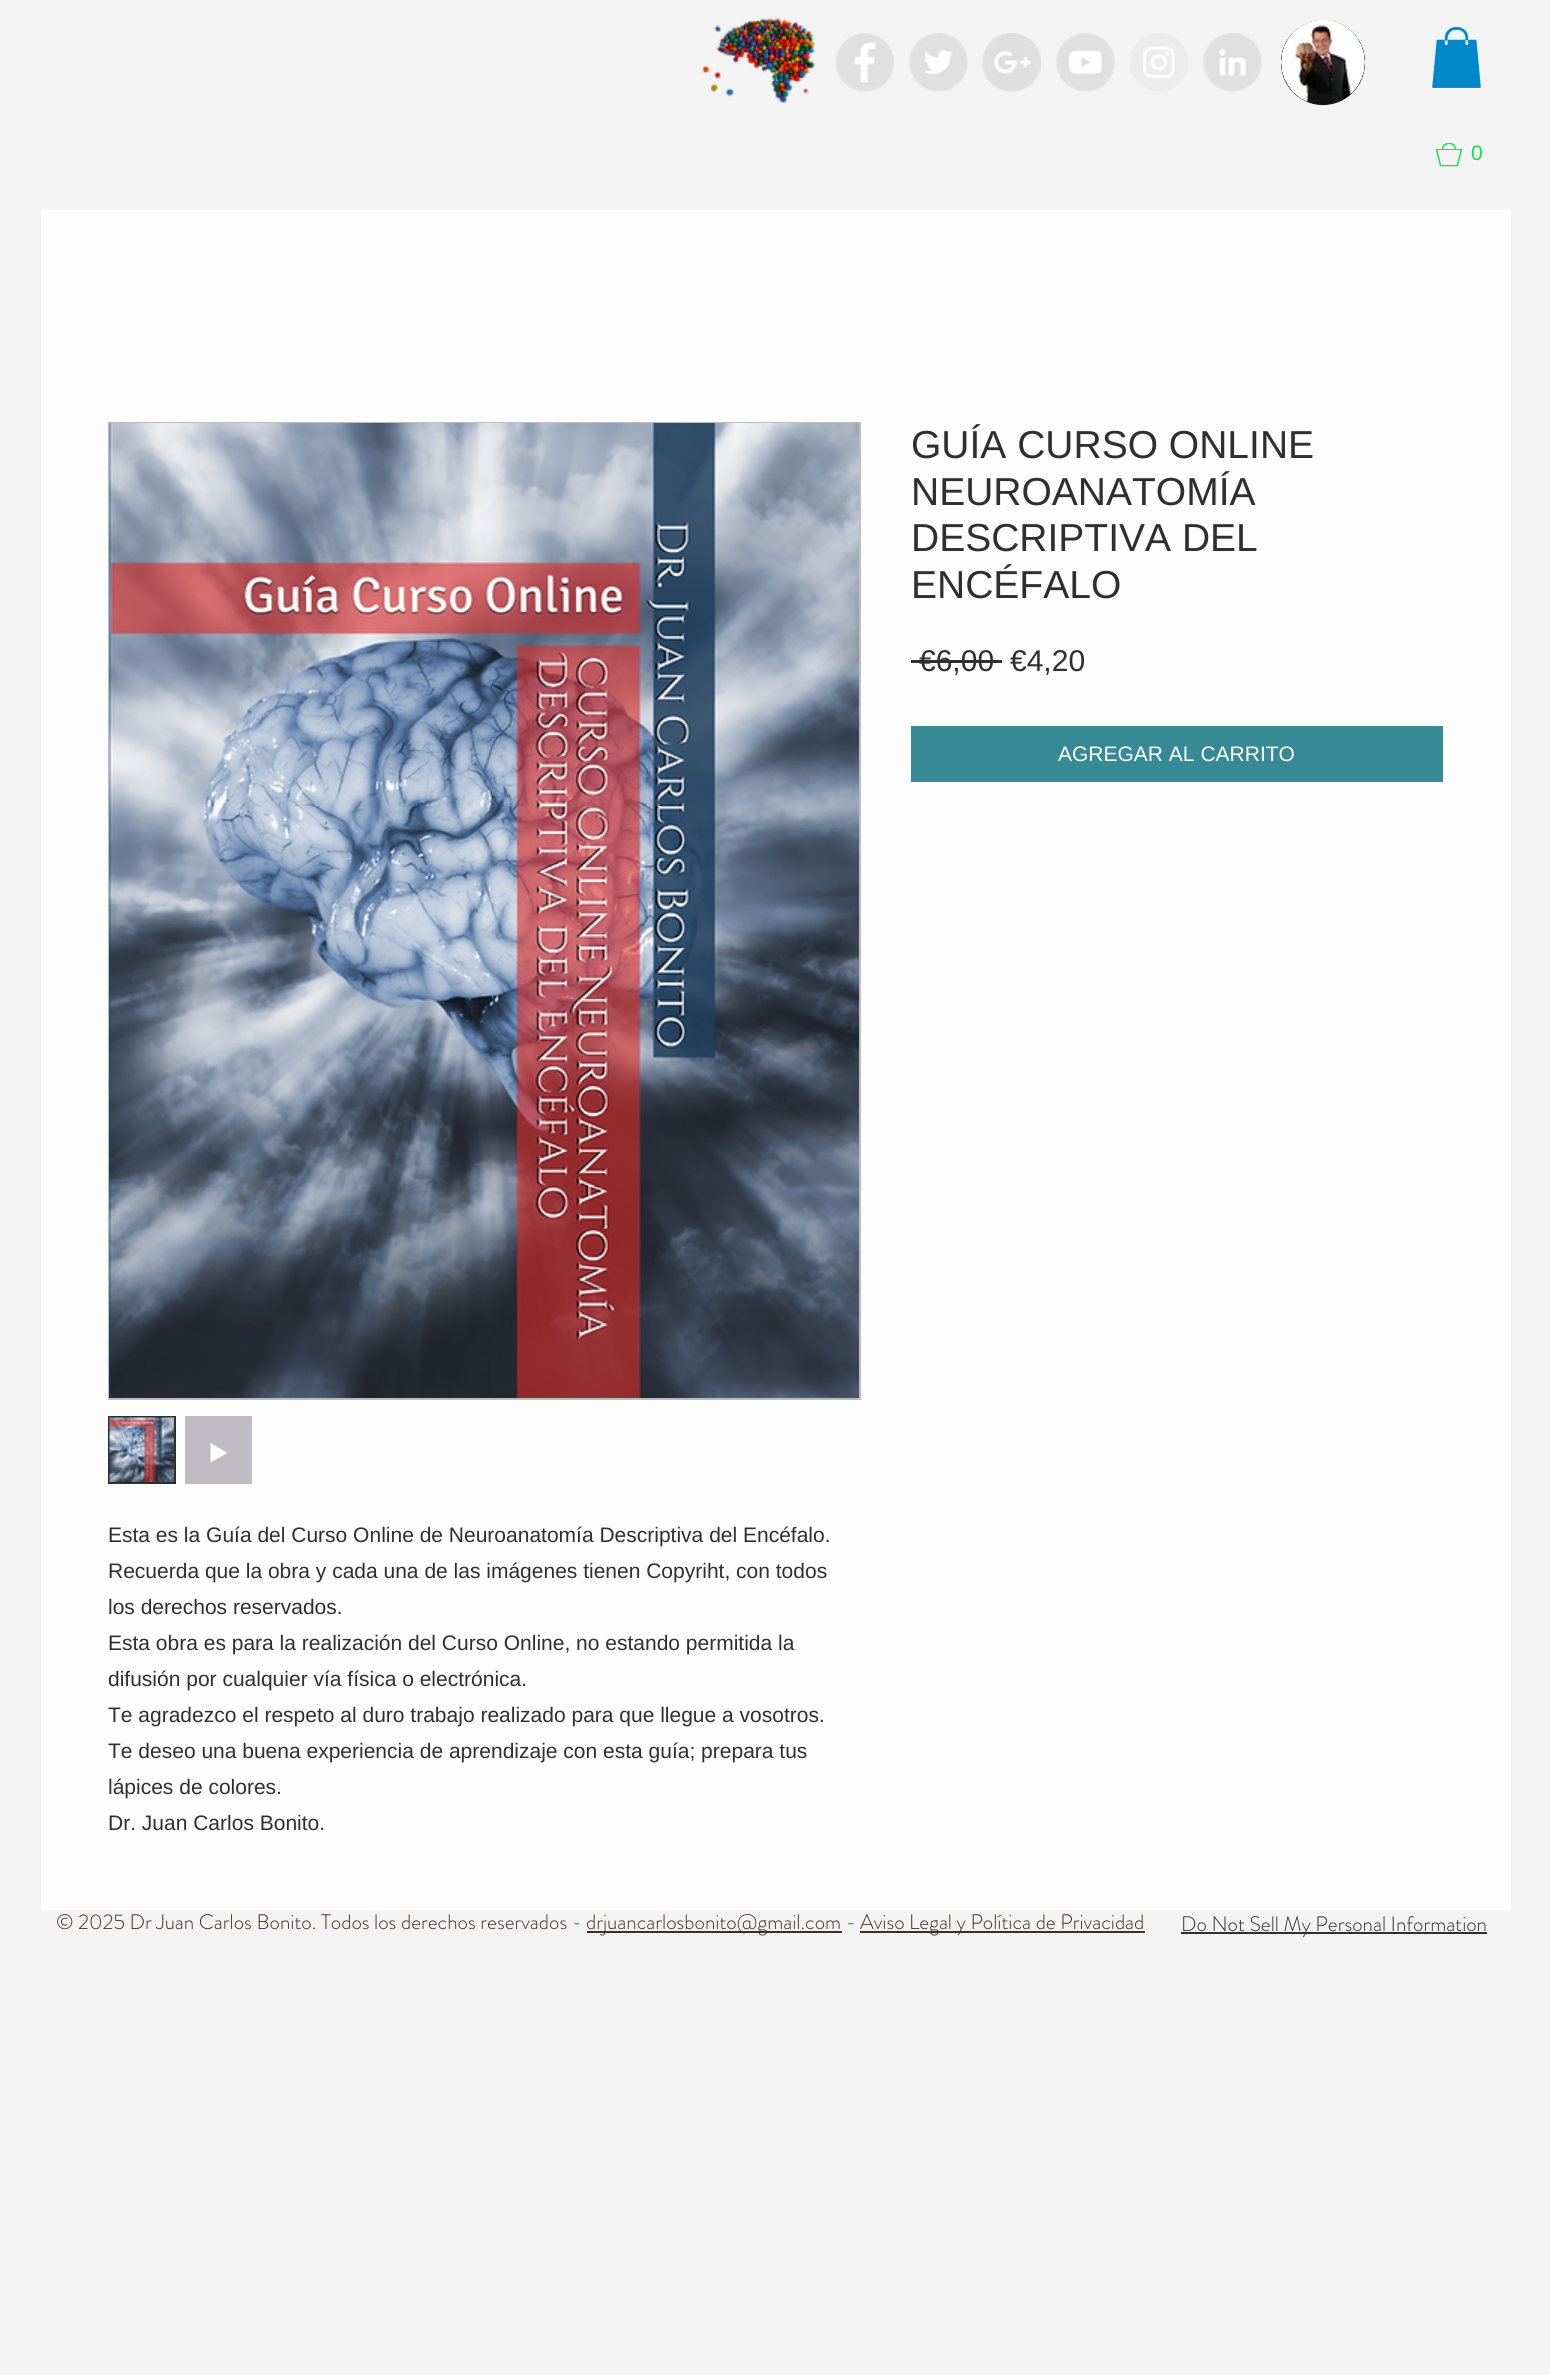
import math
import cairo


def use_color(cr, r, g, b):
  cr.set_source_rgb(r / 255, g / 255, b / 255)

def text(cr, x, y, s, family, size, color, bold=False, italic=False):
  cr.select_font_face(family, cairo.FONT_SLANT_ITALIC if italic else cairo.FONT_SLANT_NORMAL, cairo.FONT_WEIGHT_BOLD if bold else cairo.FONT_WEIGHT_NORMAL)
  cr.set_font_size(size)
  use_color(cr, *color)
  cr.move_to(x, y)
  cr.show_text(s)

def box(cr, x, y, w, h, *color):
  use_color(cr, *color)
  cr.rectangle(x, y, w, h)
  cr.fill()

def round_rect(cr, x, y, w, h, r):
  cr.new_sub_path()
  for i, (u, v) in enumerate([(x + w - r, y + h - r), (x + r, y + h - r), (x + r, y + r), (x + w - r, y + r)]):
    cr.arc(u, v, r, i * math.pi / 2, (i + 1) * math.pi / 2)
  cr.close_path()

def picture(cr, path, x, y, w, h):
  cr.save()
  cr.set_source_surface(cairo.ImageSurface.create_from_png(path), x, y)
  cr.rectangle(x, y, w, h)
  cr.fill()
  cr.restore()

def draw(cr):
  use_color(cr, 243, 243, 243)
  cr.paint()
  picture(cr, "img_01.png", 701, 17, 116, 87)
  picture(cr, "img_02.png", 835, 33, 59, 59)
  picture(cr, "img_03.png", 909, 33, 59, 59)
  picture(cr, "img_04.png", 982, 33, 59, 59)
  picture(cr, "img_05.png", 1056, 33, 59, 59)
  picture(cr, "img_06.png", 1129, 33, 59, 59)
  picture(cr, "img_07.png", 1203, 33, 59, 59)
  use_color(cr, 0, 0, 0)
  round_rect(cr, 1281, 20, 84, 85, 42)
  cr.fill()
  picture(cr, "img_08.png", 1281, 20, 84, 85)
  picture(cr, "img_09.png", 1432, 27, 49, 61)
  picture(cr, "img_10.png", 1436, 143, 27, 24)
  box(cr, 41, 210, 1470, 1700, 253, 253, 253)
  box(cr, 911, 660, 91, 3, 47, 47, 48)
  box(cr, 911, 726, 532, 56, 53, 138, 149)
  cr.rectangle(109, 423, 751, 976)
  use_color(cr, 190, 188, 194)
  cr.stroke()
  picture(cr, "img_11.png", 109, 423, 750, 975)
  cr.rectangle(109, 1417, 66, 66)
  use_color(cr, 47, 47, 48)
  cr.stroke()
  picture(cr, "img_12.png", 109, 1417, 65, 65)
  box(cr, 185, 1416, 67, 68, 190, 188, 194)
  use_color(cr, 255, 255, 255)
  cr.new_path()
  cr.move_to(210.5, 1443)
  cr.line_to(210.5, 1462.5)
  cr.line_to(227.5, 1453)
  cr.close_path()
  cr.fill()
  box(cr, 587, 1931, 255, 2, 64, 46, 35)
  box(cr, 860, 1931, 285, 2, 64, 46, 35)
  box(cr, 1181, 1932, 306, 2, 47, 47, 48)
  text(cr, 1471, 160, "0", "Liberation Sans", 21, (18, 230, 64))
  text(cr, 911, 458, "GUÍA CURSO ONLINE", "Liberation Sans", 39, (47, 47, 48))
  text(cr, 911, 505, "NEUROANATOMÍA", "Liberation Sans", 39, (47, 47, 48))
  text(cr, 911, 551, "DESCRIPTIVA DEL", "Liberation Sans", 39, (47, 47, 48))
  text(cr, 911, 598, "ENCÉFALO", "Liberation Sans", 39, (47, 47, 48))
  text(cr, 919, 671, "€6,00", "Liberation Sans", 30, (47, 47, 48))
  text(cr, 1010, 671, "€4,20", "Liberation Sans", 30, (47, 47, 48))
  text(cr, 1058, 761, "AGREGAR AL CARRITO", "Liberation Sans", 21, (255, 255, 255))
  text(cr, 108, 1542, "Esta es la Guía del Curso Online de Neuroanatomía Descriptiva del Encéfalo.", "Liberation Sans", 21, (47, 47, 48))
  text(cr, 108, 1578, "Recuerda que la obra y cada una de las imágenes tienen Copyriht, con todos", "Liberation Sans", 21, (47, 47, 48))
  text(cr, 108, 1614, "los derechos reservados.", "Liberation Sans", 21, (47, 47, 48))
  text(cr, 108, 1650, "Esta obra es para la realización del Curso Online, no estando permitida la", "Liberation Sans", 21, (47, 47, 48))
  text(cr, 108, 1686, "difusión por cualquier vía física o electrónica.", "Liberation Sans", 21, (47, 47, 48))
  text(cr, 108, 1722, "Te agradezco el respeto al duro trabajo realizado para que llegue a vosotros.", "Liberation Sans", 21, (47, 47, 48))
  text(cr, 108, 1758, "Te deseo una buena experiencia de aprendizaje con esta guía; prepara tus", "Liberation Sans", 21, (47, 47, 48))
  text(cr, 108, 1794, "lápices de colores.", "Liberation Sans", 21, (47, 47, 48))
  text(cr, 108, 1830, "Dr. Juan Carlos Bonito.", "Liberation Sans", 21, (47, 47, 48))
  text(cr, 56, 1929, "© 2025 Dr Juan Carlos Bonito. Todos los derechos reservados -", "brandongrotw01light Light", 21, (64, 46, 35))
  text(cr, 586, 1929, "drjuancarlosbonito@gmail.com -", "brandongrotw01light Light", 21, (64, 46, 35))
  text(cr, 860, 1929, "Aviso Legal y Política de Privacidad", "brandongrotw01light Light", 21, (64, 46, 35))
  text(cr, 1181, 1931, "Do Not Sell My Personal Information", "brandongrotw01light Light", 21, (47, 47, 48))


surface = cairo.ImageSurface(cairo.FORMAT_RGB24, 1550, 2375)
cr = cairo.Context(surface)
options = cairo.FontOptions()
options.set_hint_metrics(cairo.HINT_METRICS_OFF)
options.set_hint_style(cairo.HINT_STYLE_NONE)
cr.set_font_options(options)
cr.set_miter_limit(4)
draw(cr)
surface.write_to_png("out.png")
